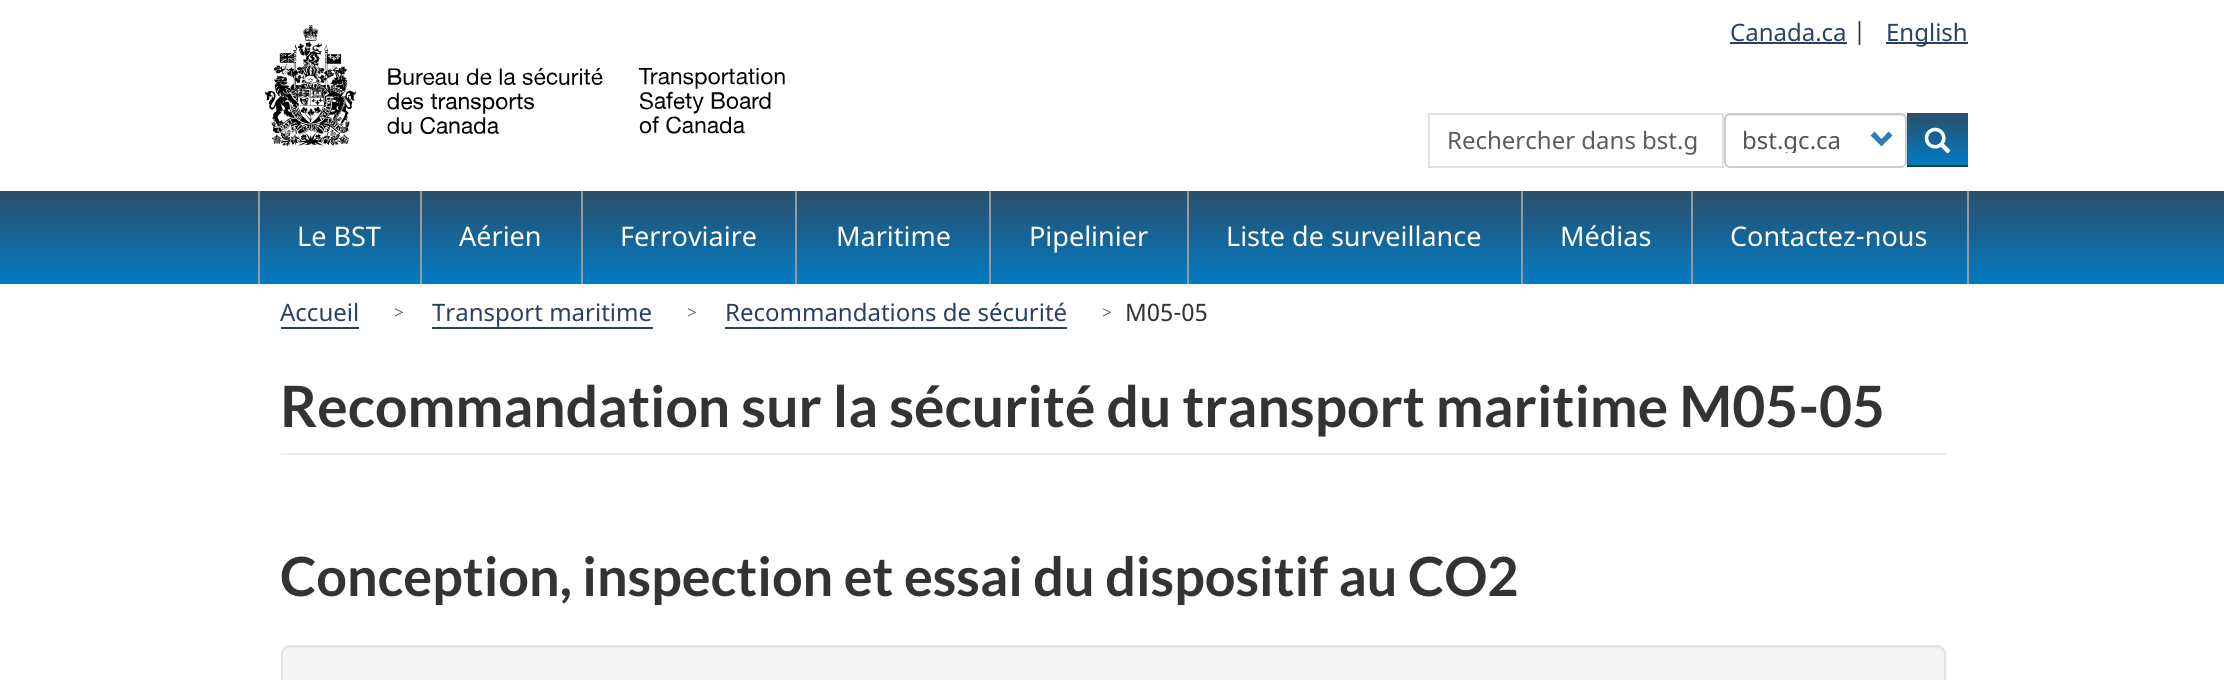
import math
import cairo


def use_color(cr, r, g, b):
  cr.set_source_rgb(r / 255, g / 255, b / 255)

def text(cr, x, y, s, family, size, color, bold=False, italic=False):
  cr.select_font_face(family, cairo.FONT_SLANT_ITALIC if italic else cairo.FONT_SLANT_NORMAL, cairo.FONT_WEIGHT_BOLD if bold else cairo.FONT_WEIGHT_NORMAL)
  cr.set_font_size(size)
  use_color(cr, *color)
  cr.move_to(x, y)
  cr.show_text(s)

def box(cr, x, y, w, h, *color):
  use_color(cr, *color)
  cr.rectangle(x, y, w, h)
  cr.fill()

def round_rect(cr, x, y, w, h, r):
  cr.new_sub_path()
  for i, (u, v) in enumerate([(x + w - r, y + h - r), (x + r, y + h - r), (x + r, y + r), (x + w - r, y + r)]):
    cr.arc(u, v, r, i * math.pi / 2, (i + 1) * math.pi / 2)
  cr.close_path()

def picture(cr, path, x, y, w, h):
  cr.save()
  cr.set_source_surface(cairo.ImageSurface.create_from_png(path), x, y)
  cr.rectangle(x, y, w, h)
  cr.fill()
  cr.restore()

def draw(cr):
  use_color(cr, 255, 255, 255)
  cr.paint()
  picture(cr, "img_01.png", 265, 25, 520, 121)
  cr.rectangle(1429, 114, 294, 53)
  use_color(cr, 224, 224, 224)
  cr.stroke()
  use_color(cr, 236, 236, 236)
  cr.new_path()
  cr.move_to(1730, 116)
  cr.line_to(1900, 116)
  cr.line_to(1904, 117)
  cr.line_to(1905, 120)
  cr.curve_to(1905, 117, 1904, 115, 1901, 114)
  cr.line_to(1730, 114)
  cr.curve_to(1727, 114, 1725, 117, 1725, 120)
  cr.curve_to(1725, 118, 1727, 116, 1730, 116)
  cr.close_path()
  cr.fill()
  round_rect(cr, 1725, 114, 181, 53, 5)
  use_color(cr, 204, 204, 204)
  cr.stroke()
  use_color(cr, 51, 122, 183)
  cr.new_path()
  cr.move_to(1892.5, 135.5)
  cr.line_to(1881.5, 146.5)
  cr.line_to(1870.5, 135.5)
  cr.line_to(1874.5, 131.5)
  cr.line_to(1881.5, 139)
  cr.line_to(1888.5, 131.5)
  cr.close_path()
  cr.fill()
  gradient = cairo.LinearGradient(1937, 113, 1937, 165)
  gradient.add_color_stop_rgba(0, 0.169, 0.31, 0.412, 1)
  gradient.add_color_stop_rgba(1, 0, 0.478, 0.765, 1)
  cr.set_source(gradient)
  cr.rectangle(1907, 113, 61, 52)
  cr.fill()
  box(cr, 1907, 165, 61, 2, 38, 55, 74)
  picture(cr, "img_02.png", 1924, 127, 27, 27)
  box(cr, 1730, 42, 117, 2, 40, 65, 98)
  box(cr, 1886, 42, 82, 2, 40, 65, 98)
  gradient = cairo.LinearGradient(1112, 190, 1112, 284)
  gradient.add_color_stop_rgba(0, 0.169, 0.31, 0.412, 1)
  gradient.add_color_stop_rgba(1, 0, 0.478, 0.765, 1)
  cr.set_source(gradient)
  cr.rectangle(0, 191, 2224, 93)
  cr.fill()
  box(cr, 258, 191, 2, 93, 153, 153, 153)
  box(cr, 420, 191, 2, 93, 153, 153, 153)
  box(cr, 581, 191, 2, 93, 153, 153, 153)
  box(cr, 795, 191, 2, 93, 153, 153, 153)
  box(cr, 989, 191, 2, 93, 153, 153, 153)
  box(cr, 1187, 191, 2, 93, 153, 153, 153)
  box(cr, 1521, 191, 2, 93, 153, 153, 153)
  box(cr, 1967, 191, 2, 93, 153, 153, 153)
  box(cr, 1691, 191, 2, 93, 153, 153, 153)
  box(cr, 281, 327, 78, 2, 40, 65, 98)
  box(cr, 432, 327, 221, 2, 40, 65, 98)
  box(cr, 725, 327, 342, 2, 40, 65, 98)
  box(cr, 281, 453, 1665, 2, 238, 238, 238)
  use_color(cr, 245, 245, 245)
  round_rect(cr, 281, 645, 1665, 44, 9)
  cr.fill()
  use_color(cr, 233, 233, 233)
  cr.new_path()
  cr.move_to(290, 648)
  cr.line_to(1936, 648)
  cr.curve_to(1941, 648, 1944, 651, 1944, 656)
  cr.curve_to(1944, 651, 1941, 647, 1936, 647)
  cr.line_to(290, 647)
  cr.curve_to(285, 647, 282, 651, 282, 656)
  cr.curve_to(282, 651, 285, 648, 290, 648)
  cr.close_path()
  cr.fill()
  round_rect(cr, 282, 646, 1663, 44, 8)
  use_color(cr, 227, 227, 227)
  cr.stroke()
  text(cr, 1447, 149, "Rechercher dans bst.g", "Noto Sans", 24, (92, 92, 92))
  cr.save()
  cr.rectangle(1743, 129, 114, 24)
  cr.clip()
  text(cr, 1742, 149, "bst.gc.ca", "Noto Sans", 24, (85, 85, 85))
  cr.restore()
  text(cr, 1730, 41, "Canada.ca", "Noto Sans", 24, (40, 65, 98))
  text(cr, 1853, 41, "|", "Noto Sans", 24, (51, 51, 51))
  text(cr, 1886, 41, "English", "Noto Sans", 24, (40, 65, 98))
  text(cr, 297, 246, "Le BST", "Noto Sans", 27, (255, 255, 255))
  text(cr, 459, 246, "Aérien", "Noto Sans", 27, (255, 255, 255))
  text(cr, 620, 246, "Ferroviaire", "Noto Sans", 27, (255, 255, 255))
  text(cr, 836, 246, "Maritime", "Noto Sans", 27, (255, 255, 255))
  text(cr, 1029, 246, "Pipelinier", "Noto Sans", 27, (255, 255, 255))
  text(cr, 1226, 246, "Liste de surveillance", "Noto Sans", 27, (255, 255, 255))
  text(cr, 1560, 246, "Médias", "Noto Sans", 27, (255, 255, 255))
  text(cr, 1730, 246, "Contactez-nous", "Noto Sans", 27, (255, 255, 255))
  text(cr, 280, 321, "Accueil", "Noto Sans", 24, (40, 65, 98))
  text(cr, 394, 318, ">", "Liberation Serif", 17, (51, 51, 51))
  text(cr, 432, 321, "Transport maritime", "Noto Sans", 24, (40, 65, 98))
  text(cr, 687, 318, ">", "Liberation Serif", 17, (51, 51, 51))
  text(cr, 725, 321, "Recommandations de sécurité", "Noto Sans", 24, (40, 65, 98))
  text(cr, 1102, 318, ">", "Liberation Serif", 17, (51, 51, 51))
  text(cr, 1125, 321, "M05-05", "Noto Sans", 24, (51, 51, 51))
  text(cr, 280, 427, "Recommandation sur la sécurité du transport maritime M05-05", "Lato", 57, (51, 51, 51), bold=True)
  text(cr, 280, 596, "Conception, inspection et essai du dispositif au CO2", "Lato", 54, (51, 51, 51), bold=True)


surface = cairo.ImageSurface(cairo.FORMAT_RGB24, 2224, 680)
cr = cairo.Context(surface)
options = cairo.FontOptions()
options.set_hint_metrics(cairo.HINT_METRICS_OFF)
options.set_hint_style(cairo.HINT_STYLE_NONE)
cr.set_font_options(options)
cr.set_miter_limit(4)
draw(cr)
surface.write_to_png("out.png")
